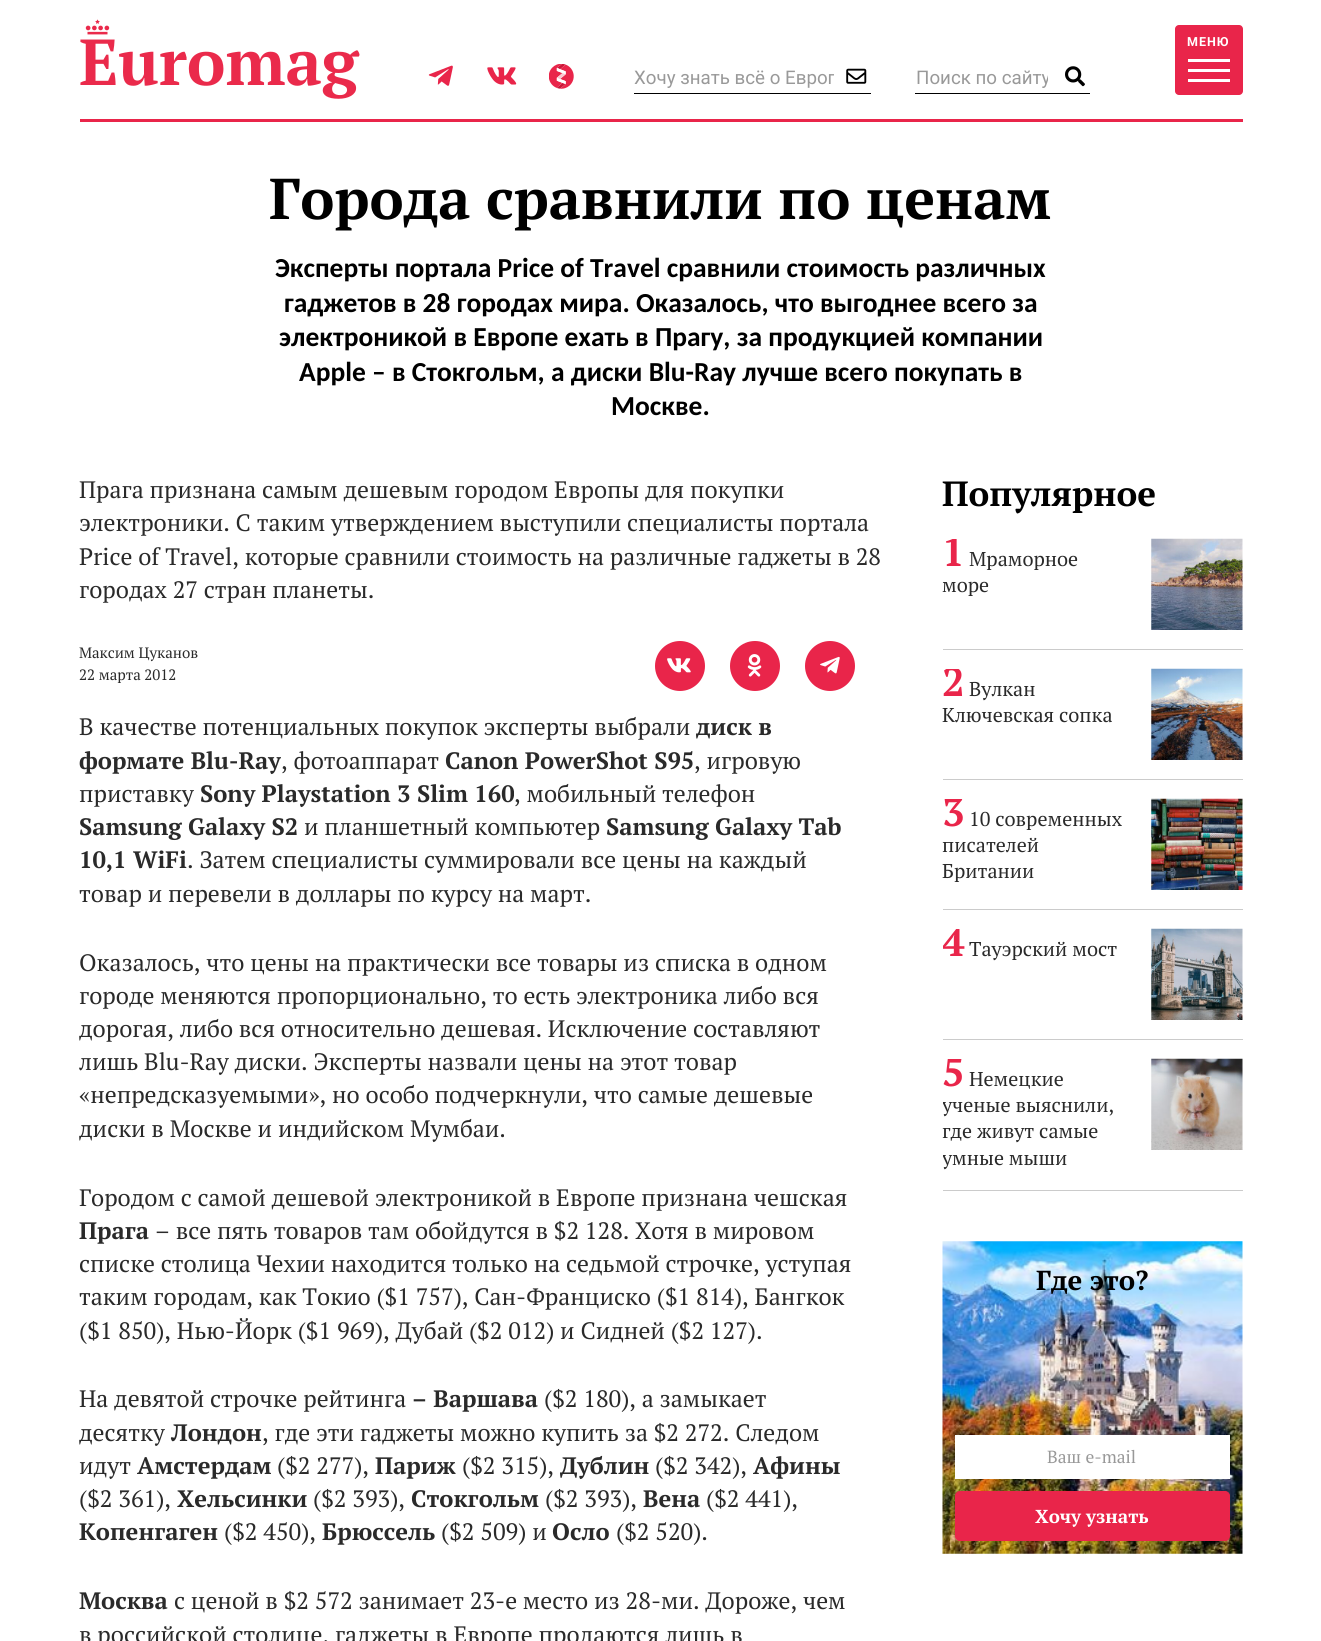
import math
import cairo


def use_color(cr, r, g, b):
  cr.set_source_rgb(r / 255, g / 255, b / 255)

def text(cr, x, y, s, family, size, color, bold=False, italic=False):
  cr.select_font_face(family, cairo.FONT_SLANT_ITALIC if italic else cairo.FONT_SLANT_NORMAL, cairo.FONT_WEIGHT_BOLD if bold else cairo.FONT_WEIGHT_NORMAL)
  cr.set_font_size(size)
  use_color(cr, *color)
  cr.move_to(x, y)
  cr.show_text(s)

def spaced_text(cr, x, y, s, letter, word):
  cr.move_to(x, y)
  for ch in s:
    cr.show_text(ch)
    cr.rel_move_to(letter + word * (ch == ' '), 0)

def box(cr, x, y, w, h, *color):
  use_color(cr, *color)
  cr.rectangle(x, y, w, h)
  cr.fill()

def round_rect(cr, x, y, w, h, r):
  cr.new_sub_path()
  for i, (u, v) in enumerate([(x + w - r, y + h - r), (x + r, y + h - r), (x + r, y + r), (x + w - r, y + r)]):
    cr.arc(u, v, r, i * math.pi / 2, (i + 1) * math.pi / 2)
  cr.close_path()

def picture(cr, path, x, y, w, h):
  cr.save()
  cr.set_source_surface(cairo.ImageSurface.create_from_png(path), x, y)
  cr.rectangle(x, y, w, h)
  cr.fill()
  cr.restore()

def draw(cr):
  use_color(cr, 255, 255, 255)
  cr.paint()
  box(cr, 80, 119, 1163, 3, 233, 37, 74)
  picture(cr, "img_01.png", 80, 19, 280, 80)
  round_rect(cr, 1175, 25, 68, 70, 4)
  cr.fill()
  box(cr, 1188, 59, 42, 3, 255, 255, 255)
  box(cr, 1188, 69, 42, 3, 255, 255, 255)
  box(cr, 1188, 79, 42, 3, 255, 255, 255)
  picture(cr, "img_02.png", 428, 65, 25, 21)
  picture(cr, "img_03.png", 487, 67, 30, 18)
  picture(cr, "img_04.png", 549, 64, 25, 25)
  box(cr, 634, 93, 237, 1, 0, 0, 0)
  picture(cr, "img_05.png", 846, 68, 21, 16)
  box(cr, 915, 93, 175, 1, 0, 0, 0)
  picture(cr, "img_06.png", 1065, 66, 20, 21)
  use_color(cr, 233, 37, 74)
  cr.arc(680, 666, 25, 0, 2 * math.pi)
  cr.fill()
  picture(cr, "img_07.png", 667, 658, 24, 15)
  cr.arc(755, 666, 25, 0, 2 * math.pi)
  cr.fill()
  picture(cr, "img_08.png", 747, 654, 15, 23)
  cr.arc(830, 666, 25, 0, 2 * math.pi)
  cr.fill()
  picture(cr, "img_09.png", 820, 656, 20, 18)
  box(cr, 943, 649, 300, 1, 203, 203, 203)
  picture(cr, "img_10.png", 1151, 538, 92, 92)
  box(cr, 943, 779, 300, 1, 203, 203, 203)
  picture(cr, "img_11.png", 1151, 668, 92, 92)
  box(cr, 943, 909, 300, 1, 203, 203, 203)
  picture(cr, "img_12.png", 1151, 798, 92, 92)
  box(cr, 943, 1039, 300, 1, 203, 203, 203)
  picture(cr, "img_13.png", 1151, 928, 92, 92)
  box(cr, 943, 1190, 300, 1, 203, 203, 203)
  picture(cr, "img_14.png", 1151, 1058, 92, 92)
  picture(cr, "img_15.png", 942, 1241, 301, 313)
  box(cr, 955, 1435, 275, 44, 255, 255, 255)
  use_color(cr, 233, 37, 74)
  round_rect(cr, 955.5, 1491.5, 274, 49, 4.5)
  cr.fill_preserve()
  cr.set_line_width(1)
  cr.stroke()
  cr.select_font_face("Roboto", cairo.FONT_SLANT_NORMAL, cairo.FONT_WEIGHT_BOLD)
  cr.set_font_size(12.5)
  use_color(cr, 255, 255, 255)
  spaced_text(cr, 1187, 46, "МЕНЮ", 1, 0)
  cr.save()
  cr.rectangle(634, 66, 200, 23)
  cr.clip()
  text(cr, 634, 84, "Хочу знать всё о Европ", "Roboto", 18.75, (153, 153, 153))
  cr.restore()
  cr.save()
  cr.rectangle(915, 66, 133, 23)
  cr.clip()
  text(cr, 916, 84, "Поиск по сайту", "Roboto", 18.75, (153, 153, 153))
  cr.restore()
  text(cr, 269, 219, "Города сравнили по ценам", "PT Serif", 57.5, (0, 0, 0), bold=True)
  text(cr, 275, 277, "Эксперты портала Price of Travel сравнили стоимость различных", "Carlito", 27.5, (0, 0, 0), bold=True)
  text(cr, 284, 312, "гаджетов в 28 городах мира. Оказалось, что выгоднее всего за", "Carlito", 27.5, (0, 0, 0), bold=True)
  text(cr, 279, 346, "электроникой в Европе ехать в Прагу, за продукцией компании", "Carlito", 27.5, (0, 0, 0), bold=True)
  text(cr, 299, 381, "Apple – в Стокгольм, а диски Blu-Ray лучше всего покупать в", "Carlito", 27.5, (0, 0, 0), bold=True)
  text(cr, 611, 415, "Москве.", "Carlito", 27.5, (0, 0, 0), bold=True)
  text(cr, 79, 498, "Прага признана самым дешевым городом Европы для покупки", "PT Serif", 23.75, (42, 42, 42))
  text(cr, 79, 531, "электроники. С таким утверждением выступили специалисты портала", "PT Serif", 23.75, (42, 42, 42))
  text(cr, 79, 565, "Price of Travel, которые сравнили стоимость на различные гаджеты в 28", "PT Serif", 23.75, (42, 42, 42))
  text(cr, 79, 598, "городах 27 стран планеты.", "PT Serif", 23.75, (42, 42, 42))
  text(cr, 79, 658, "Максим Цуканов", "PT Serif", 15, (42, 42, 42))
  text(cr, 79, 680, "22 марта 2012", "PT Serif", 15, (42, 42, 42))
  text(cr, 79, 735, "В качестве потенциальных покупок эксперты выбрали", "PT Serif", 23.75, (42, 42, 42))
  text(cr, 696, 735, "диск в", "PT Serif", 23.75, (42, 42, 42), bold=True)
  text(cr, 79, 769, "формате Blu-Ray", "PT Serif", 23.75, (42, 42, 42), bold=True)
  text(cr, 281, 769, ", фотоаппарат", "PT Serif", 23.75, (42, 42, 42))
  text(cr, 445, 769, "Canon PowerShot S95", "PT Serif", 23.75, (42, 42, 42), bold=True)
  text(cr, 694, 769, ", игровую", "PT Serif", 23.75, (42, 42, 42))
  text(cr, 79, 802, "приставку", "PT Serif", 23.75, (42, 42, 42))
  text(cr, 200, 802, "Sony Playstation 3 Slim 160", "PT Serif", 23.75, (42, 42, 42), bold=True)
  text(cr, 514, 802, ", мобильный телефон", "PT Serif", 23.75, (42, 42, 42))
  text(cr, 79, 835, "Samsung Galaxy S2", "PT Serif", 23.75, (42, 42, 42), bold=True)
  text(cr, 304, 835, "и планшетный компьютер", "PT Serif", 23.75, (42, 42, 42))
  text(cr, 606, 835, "Samsung Galaxy Tab", "PT Serif", 23.75, (42, 42, 42), bold=True)
  text(cr, 79, 868, "10,1 WiFi", "PT Serif", 23.75, (42, 42, 42), bold=True)
  text(cr, 187, 868, ". Затем специалисты суммировали все цены на каждый", "PT Serif", 23.75, (42, 42, 42))
  text(cr, 79, 902, "товар и перевели в доллары по курсу на март.", "PT Serif", 23.75, (42, 42, 42))
  text(cr, 79, 971, "Оказалось, что цены на практически все товары из списка в одном", "PT Serif", 23.75, (42, 42, 42))
  text(cr, 79, 1004, "городе меняются пропорционально, то есть электроника либо вся", "PT Serif", 23.75, (42, 42, 42))
  text(cr, 79, 1037, "дорогая, либо вся относительно дешевая. Исключение составляют", "PT Serif", 23.75, (42, 42, 42))
  text(cr, 79, 1070, "лишь Blu-Ray диски. Эксперты назвали цены на этот товар", "PT Serif", 23.75, (42, 42, 42))
  text(cr, 79, 1103, "«непредсказуемыми», но особо подчеркнули, что самые дешевые", "PT Serif", 23.75, (42, 42, 42))
  text(cr, 79, 1137, "диски в Москве и индийском Мумбаи.", "PT Serif", 23.75, (42, 42, 42))
  text(cr, 79, 1206, "Городом с самой дешевой электроникой в Европе признана чешская", "PT Serif", 23.75, (42, 42, 42))
  text(cr, 79, 1239, "Прага", "PT Serif", 23.75, (42, 42, 42), bold=True)
  text(cr, 155, 1239, "– все пять товаров там обойдутся в $2 128. Хотя в мировом", "PT Serif", 23.75, (42, 42, 42))
  text(cr, 79, 1272, "списке столица Чехии находится только на седьмой строчке, уступая", "PT Serif", 23.75, (42, 42, 42))
  text(cr, 79, 1305, "таким городам, как Токио ($1 757), Сан-Франциско ($1 814), Бангкок", "PT Serif", 23.75, (42, 42, 42))
  text(cr, 79, 1339, "($1 850), Нью-Йорк ($1 969), Дубай ($2 012) и Сидней ($2 127).", "PT Serif", 23.75, (42, 42, 42))
  text(cr, 79, 1407, "На девятой строчке рейтинга", "PT Serif", 23.75, (42, 42, 42))
  text(cr, 412, 1407, "– Варшава", "PT Serif", 23.75, (42, 42, 42), bold=True)
  text(cr, 544, 1407, "($2 180), а замыкает", "PT Serif", 23.75, (42, 42, 42))
  text(cr, 79, 1441, "десятку", "PT Serif", 23.75, (42, 42, 42))
  text(cr, 171, 1441, "Лондон", "PT Serif", 23.75, (42, 42, 42), bold=True)
  text(cr, 262, 1441, ", где эти гаджеты можно купить за $2 272. Следом", "PT Serif", 23.75, (42, 42, 42))
  text(cr, 79, 1474, "идут", "PT Serif", 23.75, (42, 42, 42))
  text(cr, 137, 1474, "Амстердам", "PT Serif", 23.75, (42, 42, 42), bold=True)
  text(cr, 277, 1474, "($2 277),", "PT Serif", 23.75, (42, 42, 42))
  text(cr, 375, 1474, "Париж", "PT Serif", 23.75, (42, 42, 42), bold=True)
  text(cr, 462, 1474, "($2 315),", "PT Serif", 23.75, (42, 42, 42))
  text(cr, 560, 1474, "Дублин", "PT Serif", 23.75, (42, 42, 42), bold=True)
  text(cr, 655, 1474, "($2 342),", "PT Serif", 23.75, (42, 42, 42))
  text(cr, 753, 1474, "Афины", "PT Serif", 23.75, (42, 42, 42), bold=True)
  text(cr, 79, 1507, "($2 361),", "PT Serif", 23.75, (42, 42, 42))
  text(cr, 177, 1507, "Хельсинки", "PT Serif", 23.75, (42, 42, 42), bold=True)
  text(cr, 313, 1507, "($2 393),", "PT Serif", 23.75, (42, 42, 42))
  text(cr, 411, 1507, "Стокгольм", "PT Serif", 23.75, (42, 42, 42), bold=True)
  text(cr, 545, 1507, "($2 393),", "PT Serif", 23.75, (42, 42, 42))
  text(cr, 643, 1507, "Вена", "PT Serif", 23.75, (42, 42, 42), bold=True)
  text(cr, 706, 1507, "($2 441),", "PT Serif", 23.75, (42, 42, 42))
  text(cr, 79, 1540, "Копенгаген", "PT Serif", 23.75, (42, 42, 42), bold=True)
  text(cr, 224, 1540, "($2 450),", "PT Serif", 23.75, (42, 42, 42))
  text(cr, 322, 1540, "Брюссель", "PT Serif", 23.75, (42, 42, 42), bold=True)
  text(cr, 441, 1540, "($2 509) и", "PT Serif", 23.75, (42, 42, 42))
  text(cr, 552, 1540, "Осло", "PT Serif", 23.75, (42, 42, 42), bold=True)
  text(cr, 616, 1540, "($2 520).", "PT Serif", 23.75, (42, 42, 42))
  text(cr, 79, 1609, "Москва", "PT Serif", 23.75, (42, 42, 42), bold=True)
  text(cr, 174, 1609, "с ценой в $2 572 занимает 23-е место из 28-ми. Дороже, чем", "PT Serif", 23.75, (42, 42, 42))
  text(cr, 79, 1643, "в российской столице, гаджеты в Европе продаются лишь в", "PT Serif", 23.75, (42, 42, 42))
  text(cr, 942, 506, "Популярное", "PT Serif", 35, (0, 0, 0), bold=True)
  cr.save()
  cr.rectangle(943, 539, 183, 60)
  cr.clip()
  text(cr, 942, 566, "1", "PT Serif", 40, (233, 37, 74), bold=True)
  cr.restore()
  text(cr, 969, 566, "Мраморное", "PT Serif", 20, (42, 42, 42))
  text(cr, 942, 592, "море", "PT Serif", 20, (42, 42, 42))
  cr.save()
  cr.rectangle(943, 669, 183, 60)
  cr.clip()
  text(cr, 942, 696, "2", "PT Serif", 40, (233, 37, 74), bold=True)
  cr.restore()
  text(cr, 969, 696, "Вулкан", "PT Serif", 20, (42, 42, 42))
  text(cr, 942, 722, "Ключевская сопка", "PT Serif", 20, (42, 42, 42))
  cr.save()
  cr.rectangle(943, 799, 183, 86)
  cr.clip()
  text(cr, 942, 826, "3", "PT Serif", 40, (233, 37, 74), bold=True)
  cr.restore()
  text(cr, 969, 826, "10 современных", "PT Serif", 20, (42, 42, 42))
  text(cr, 942, 852, "писателей", "PT Serif", 20, (42, 42, 42))
  text(cr, 942, 878, "Британии", "PT Serif", 20, (42, 42, 42))
  cr.save()
  cr.rectangle(943, 929, 183, 34)
  cr.clip()
  text(cr, 942, 956, "4", "PT Serif", 40, (233, 37, 74), bold=True)
  cr.restore()
  text(cr, 969, 956, "Тауэрский мост", "PT Serif", 20, (42, 42, 42))
  cr.save()
  cr.rectangle(943, 1059, 183, 112)
  cr.clip()
  text(cr, 942, 1086, "5", "PT Serif", 40, (233, 37, 74), bold=True)
  cr.restore()
  text(cr, 969, 1086, "Немецкие", "PT Serif", 20, (42, 42, 42))
  cr.save()
  cr.rectangle(943, 1059, 183, 112)
  cr.clip()
  text(cr, 942, 1112, "ученые выяснили,", "PT Serif", 20, (42, 42, 42))
  cr.restore()
  text(cr, 942, 1138, "где живут самые", "PT Serif", 20, (42, 42, 42))
  cr.save()
  cr.rectangle(943, 1059, 183, 112)
  cr.clip()
  text(cr, 942, 1165, "умные мыши", "PT Serif", 20, (42, 42, 42))
  cr.restore()
  text(cr, 1036, 1290, "Где это?", "PT Serif", 27.5, (0, 0, 0), bold=True)
  text(cr, 1047, 1463, "Ваш e-mail", "PT Serif", 17.5, (153, 153, 153))
  text(cr, 1035, 1523, "Хочу узнать", "PT Serif", 18.75, (255, 255, 255), bold=True)


surface = cairo.ImageSurface(cairo.FORMAT_RGB24, 1321, 1641)
cr = cairo.Context(surface)
options = cairo.FontOptions()
options.set_hint_metrics(cairo.HINT_METRICS_OFF)
options.set_hint_style(cairo.HINT_STYLE_NONE)
cr.set_font_options(options)
cr.set_miter_limit(4)
draw(cr)
surface.write_to_png("out.png")
